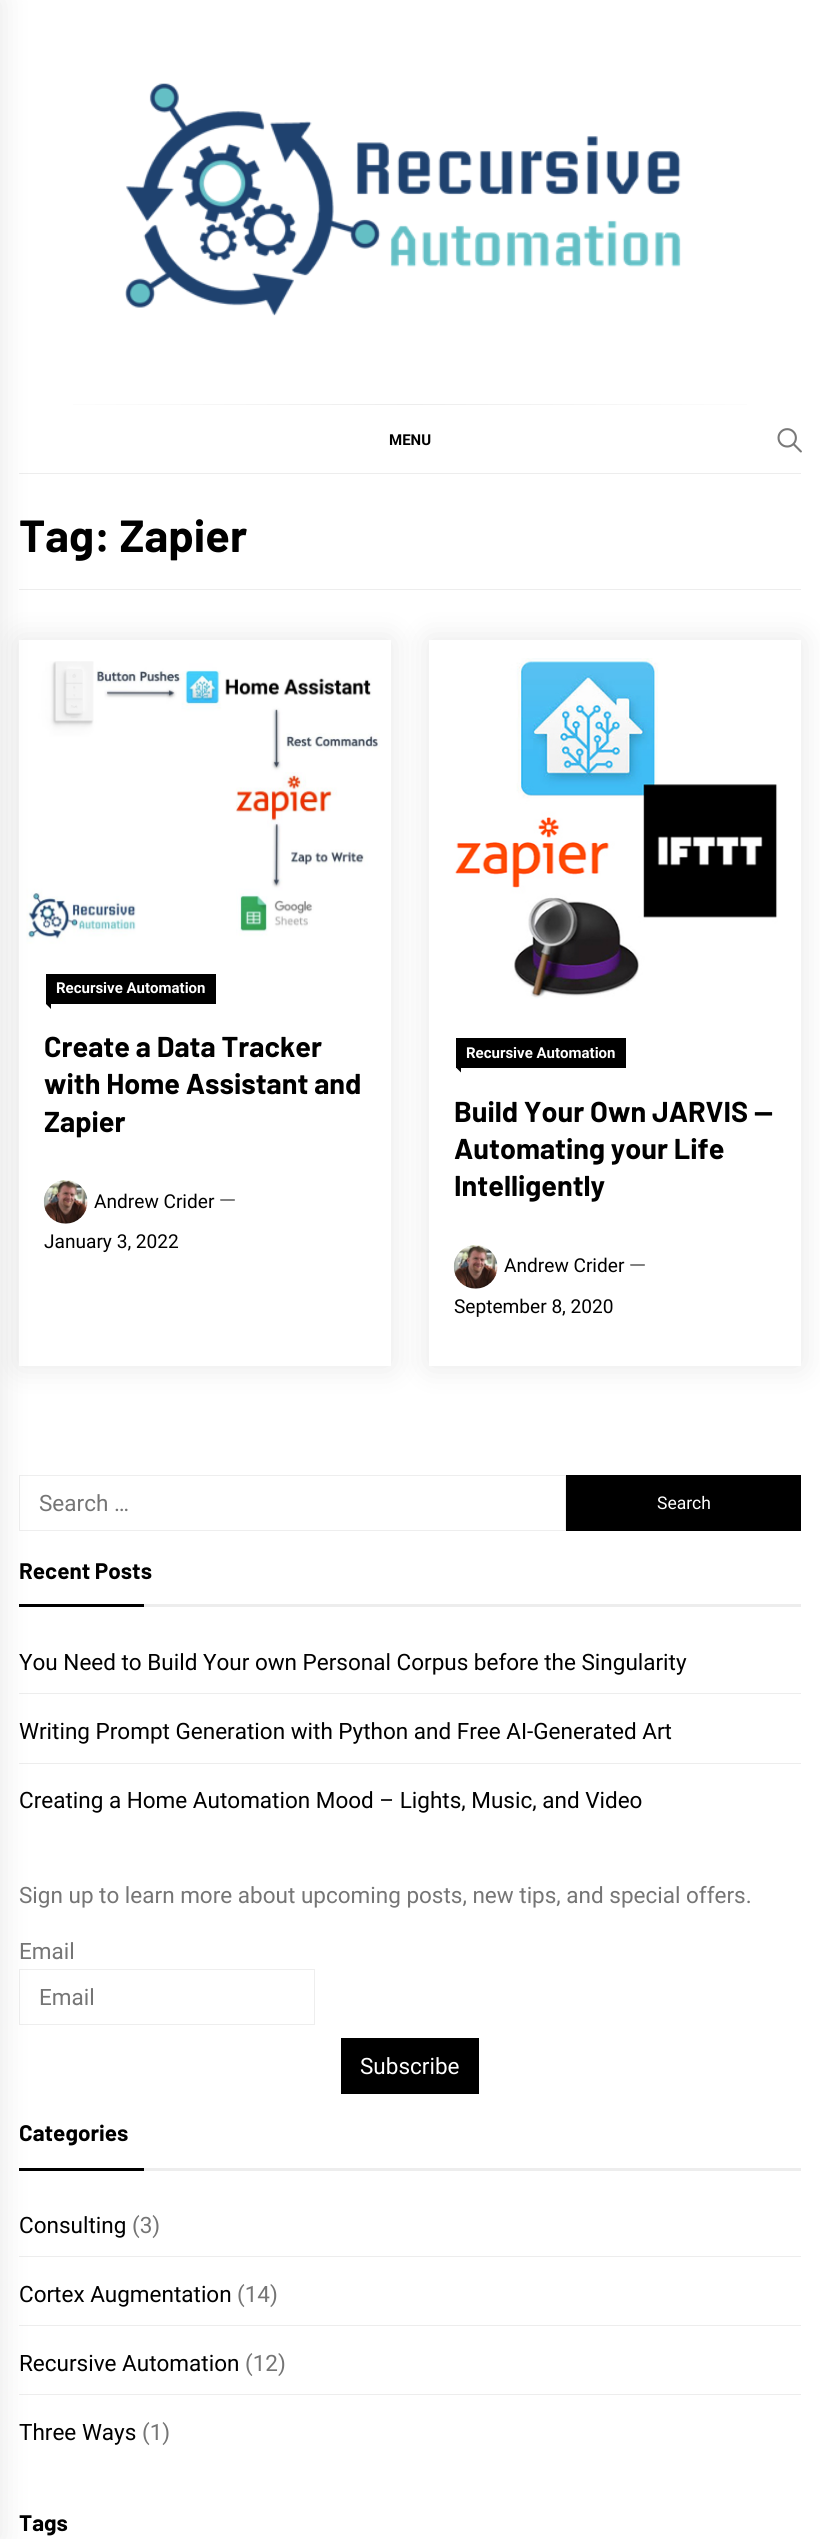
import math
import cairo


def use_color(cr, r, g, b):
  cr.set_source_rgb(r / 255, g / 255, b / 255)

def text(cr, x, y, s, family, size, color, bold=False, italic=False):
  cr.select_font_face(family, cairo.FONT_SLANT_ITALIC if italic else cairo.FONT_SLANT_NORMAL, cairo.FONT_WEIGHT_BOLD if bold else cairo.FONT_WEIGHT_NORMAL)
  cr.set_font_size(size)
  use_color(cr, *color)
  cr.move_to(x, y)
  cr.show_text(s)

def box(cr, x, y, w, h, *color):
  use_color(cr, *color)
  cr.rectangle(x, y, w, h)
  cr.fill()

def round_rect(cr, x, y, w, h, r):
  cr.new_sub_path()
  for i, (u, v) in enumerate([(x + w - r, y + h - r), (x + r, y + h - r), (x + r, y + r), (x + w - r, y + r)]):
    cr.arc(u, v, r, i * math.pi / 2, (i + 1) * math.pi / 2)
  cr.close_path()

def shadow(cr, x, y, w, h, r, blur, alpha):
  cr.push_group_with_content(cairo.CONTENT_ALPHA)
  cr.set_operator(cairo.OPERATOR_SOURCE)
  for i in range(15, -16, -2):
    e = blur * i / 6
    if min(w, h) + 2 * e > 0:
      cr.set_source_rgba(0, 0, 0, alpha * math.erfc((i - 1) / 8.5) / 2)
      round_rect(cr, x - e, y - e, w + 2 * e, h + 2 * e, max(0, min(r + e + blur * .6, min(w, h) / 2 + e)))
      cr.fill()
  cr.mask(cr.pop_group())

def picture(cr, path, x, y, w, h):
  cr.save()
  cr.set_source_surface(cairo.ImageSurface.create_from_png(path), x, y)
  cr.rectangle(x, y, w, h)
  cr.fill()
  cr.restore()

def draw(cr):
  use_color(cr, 255, 255, 255)
  cr.paint()
  box(cr, 19, 473, 782, 1, 237, 237, 237)
  box(cr, 19, 589, 782, 1, 237, 237, 237)
  cr.save()
  cr.set_fill_rule(cairo.FILL_RULE_EVEN_ODD)
  cr.new_path()
  cr.move_to(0, 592)
  cr.line_to(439, 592)
  cr.line_to(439, 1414)
  cr.line_to(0, 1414)
  cr.close_path()
  cr.move_to(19, 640)
  cr.line_to(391, 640)
  cr.line_to(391, 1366)
  cr.line_to(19, 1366)
  cr.close_path()
  cr.clip()
  use_color(cr, 0, 0, 0)
  shadow(cr, 19, 640, 372, 726, 0, 15.5, 0.1)
  cr.restore()
  picture(cr, "img_03.png", 26, 661, 354, 283)
  box(cr, 46, 974, 170, 30, 0, 0, 0)
  cr.new_path()
  cr.move_to(51, 1004)
  cr.line_to(51, 1009)
  cr.line_to(46, 1004)
  cr.close_path()
  cr.fill()
  picture(cr, "img_04.png", 43, 1180, 45, 44)
  cr.rectangle(19.5, 1475.5, 546, 55)
  use_color(cr, 238, 238, 238)
  cr.set_line_width(1)
  cr.stroke()
  box(cr, 19, 1604, 125, 3, 0, 0, 0)
  box(cr, 19, 1693, 782, 1, 237, 237, 237)
  box(cr, 19, 1763, 782, 1, 237, 237, 237)
  cr.rectangle(19.5, 1969.5, 295, 55)
  use_color(cr, 238, 238, 238)
  cr.stroke()
  box(cr, 19, 2168, 125, 3, 0, 0, 0)
  box(cr, 19, 2256, 782, 1, 237, 237, 237)
  box(cr, 19, 2325, 782, 1, 237, 237, 237)
  box(cr, 19, 2394, 782, 1, 237, 237, 237)
  use_color(cr, 0, 0, 0)
  shadow(cr, -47, 0, 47, 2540, 0, 15.5, 0.1)
  picture(cr, "img_01.png", 125, 83, 556, 233)
  gradient = cairo.LinearGradient(801, 404, 19, 404)
  gradient.add_color_stop_rgba(0, 1, 1, 1, 1)
  gradient.add_color_stop_rgba(0.5, 0.929, 0.929, 0.929, 1)
  gradient.add_color_stop_rgba(1, 1, 1, 1, 1)
  cr.set_source(gradient)
  cr.rectangle(73, 404, 674, 1)
  cr.fill()
  picture(cr, "img_02.png", 777, 428, 25, 25)
  picture(cr, "img_05.png", 220, 1199, 15, 2)
  cr.save()
  cr.set_fill_rule(cairo.FILL_RULE_EVEN_ODD)
  cr.new_path()
  cr.move_to(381, 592)
  cr.line_to(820, 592)
  cr.line_to(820, 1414)
  cr.line_to(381, 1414)
  cr.close_path()
  cr.move_to(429, 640)
  cr.line_to(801, 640)
  cr.line_to(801, 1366)
  cr.line_to(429, 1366)
  cr.close_path()
  cr.clip()
  use_color(cr, 0, 0, 0)
  shadow(cr, 429, 640, 372, 726, 0, 15.5, 0.1)
  cr.restore()
  picture(cr, "img_06.png", 454, 658, 324, 341)
  box(cr, 456, 1038, 170, 30, 0, 0, 0)
  cr.new_path()
  cr.move_to(461, 1067.5)
  cr.line_to(461, 1072.5)
  cr.line_to(456, 1067.5)
  cr.close_path()
  cr.fill()
  picture(cr, "img_07.png", 453, 1245, 45, 44)
  picture(cr, "img_05.png", 630, 1264, 15, 2)
  box(cr, 566, 1475, 235, 56, 0, 0, 0)
  box(cr, 144, 1604, 657, 3, 237, 237, 237)
  box(cr, 341, 2038, 138, 56, 0, 0, 0)
  box(cr, 144, 2168, 657, 3, 237, 237, 237)
  text(cr, 389, 445, "MENU", "Roboto", 15, (0, 0, 0), bold=True)
  text(cr, 19, 552, "Tag: Zapier", "Barlow", 45, (0, 0, 0), bold=True)
  text(cr, 56, 993, "Recursive Automation", "Roboto", 15, (255, 255, 255), bold=True)
  text(cr, 44, 1057, "Create a Data Tracker", "Barlow", 28.75, (0, 0, 0), bold=True)
  text(cr, 44, 1094, "with Home Assistant and", "Barlow", 28.75, (0, 0, 0), bold=True)
  text(cr, 44, 1132, "Zapier", "Barlow", 28.75, (0, 0, 0), bold=True)
  text(cr, 94, 1208, "Andrew Crider", "Roboto", 19.1, (0, 0, 0))
  text(cr, 44, 1248, "January 3, 2022", "Roboto", 19.1, (0, 0, 0))
  text(cr, 466, 1058, "Recursive Automation", "Roboto", 15, (255, 255, 255), bold=True)
  text(cr, 454, 1122, "Build Your Own JARVIS —", "Barlow", 28.75, (0, 0, 0), bold=True)
  text(cr, 454, 1159, "Automating your Life", "Barlow", 28.75, (0, 0, 0), bold=True)
  text(cr, 454, 1196, "Intelligently", "Barlow", 28.75, (0, 0, 0), bold=True)
  text(cr, 504, 1272, "Andrew Crider", "Roboto", 19.1, (0, 0, 0))
  text(cr, 454, 1313, "September 8, 2020", "Roboto", 19.1, (0, 0, 0))
  text(cr, 39, 1511, "Search …", "Roboto", 22.5, (117, 117, 117))
  text(cr, 657, 1509, "Search", "Roboto", 17.5, (255, 255, 255))
  text(cr, 19, 1579, "Recent Posts", "Barlow", 22.5, (0, 0, 0), bold=True)
  text(cr, 19, 1670, "You Need to Build Your own Personal Corpus before the Singularity", "Roboto", 22.5, (0, 0, 0))
  text(cr, 19, 1739, "Writing Prompt Generation with Python and Free AI-Generated Art", "Roboto", 22.5, (0, 0, 0))
  text(cr, 19, 1808, "Creating a Home Automation Mood – Lights, Music, and Video", "Roboto", 22.5, (0, 0, 0))
  text(cr, 19, 1903, "Sign up to learn more about upcoming posts, new tips, and special offers.", "Roboto", 22.5, (117, 117, 117))
  text(cr, 19, 1959, "Email", "Roboto", 22.5, (117, 117, 117))
  text(cr, 39, 2005, "Email", "Roboto", 22.5, (117, 117, 117))
  text(cr, 360, 2074, "Subscribe", "Roboto", 22.5, (255, 255, 255))
  text(cr, 19, 2141, "Categories", "Barlow", 22.5, (0, 0, 0), bold=True)
  text(cr, 19, 2233, "Consulting", "Roboto", 22.5, (0, 0, 0))
  text(cr, 132, 2233, "(3)", "Roboto", 22.5, (117, 117, 117))
  text(cr, 19, 2302, "Cortex Augmentation", "Roboto", 22.5, (0, 0, 0))
  text(cr, 237, 2302, "(14)", "Roboto", 22.5, (117, 117, 117))
  text(cr, 19, 2371, "Recursive Automation", "Roboto", 22.5, (0, 0, 0))
  text(cr, 245, 2371, "(12)", "Roboto", 22.5, (117, 117, 117))
  text(cr, 19, 2440, "Three Ways", "Roboto", 22.5, (0, 0, 0))
  text(cr, 142, 2440, "(1)", "Roboto", 22.5, (117, 117, 117))
  text(cr, 19, 2531, "Tags", "Barlow", 22.5, (0, 0, 0), bold=True)


surface = cairo.ImageSurface(cairo.FORMAT_RGB24, 820, 2539)
cr = cairo.Context(surface)
options = cairo.FontOptions()
options.set_hint_metrics(cairo.HINT_METRICS_OFF)
options.set_hint_style(cairo.HINT_STYLE_NONE)
cr.set_font_options(options)
cr.set_miter_limit(4)
draw(cr)
surface.write_to_png("out.png")
